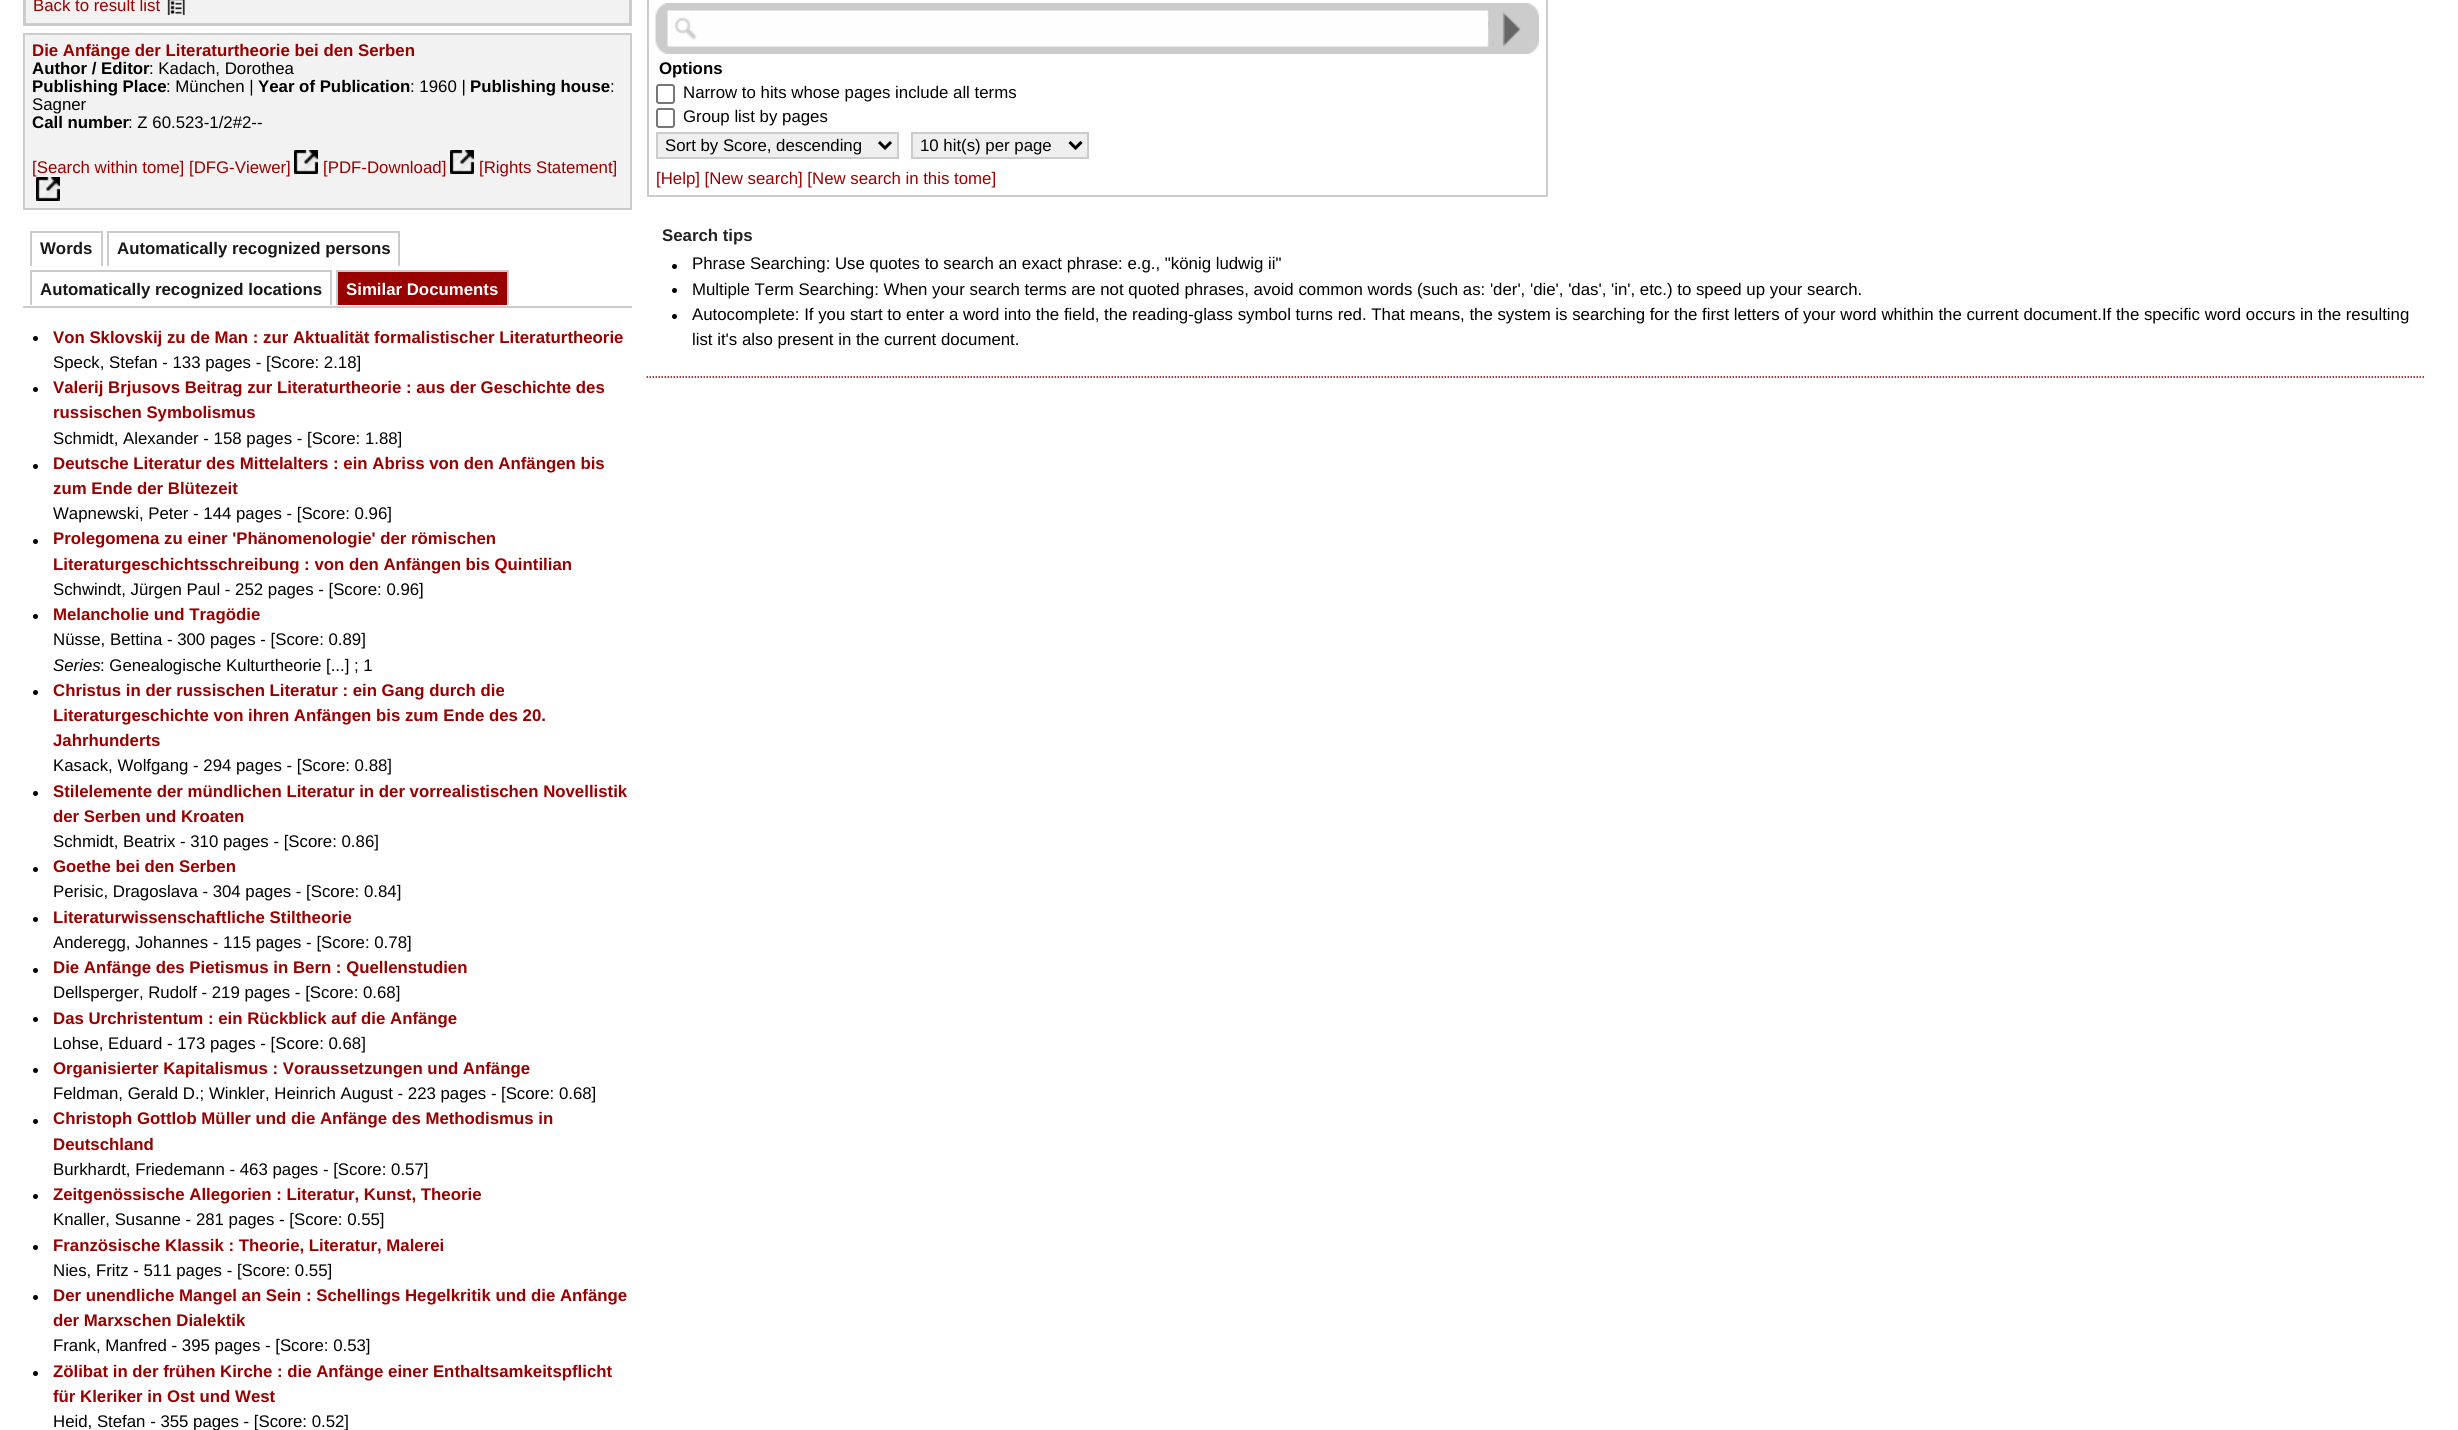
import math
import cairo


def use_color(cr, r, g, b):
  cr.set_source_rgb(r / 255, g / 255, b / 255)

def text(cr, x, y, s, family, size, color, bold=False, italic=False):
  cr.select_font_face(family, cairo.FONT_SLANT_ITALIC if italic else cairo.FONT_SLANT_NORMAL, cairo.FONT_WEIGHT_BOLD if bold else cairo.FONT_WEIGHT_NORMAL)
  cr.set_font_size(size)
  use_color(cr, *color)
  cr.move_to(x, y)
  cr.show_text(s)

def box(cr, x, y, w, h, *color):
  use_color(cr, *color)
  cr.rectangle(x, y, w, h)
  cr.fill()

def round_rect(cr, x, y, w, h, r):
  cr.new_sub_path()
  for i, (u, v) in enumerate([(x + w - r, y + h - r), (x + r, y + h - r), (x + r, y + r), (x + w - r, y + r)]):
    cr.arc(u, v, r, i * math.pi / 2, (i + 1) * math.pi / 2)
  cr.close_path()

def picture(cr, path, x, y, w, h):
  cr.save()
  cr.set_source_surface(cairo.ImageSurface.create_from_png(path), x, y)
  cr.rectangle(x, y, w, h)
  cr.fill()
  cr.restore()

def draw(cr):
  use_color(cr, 255, 255, 255)
  cr.paint()
  use_color(cr, 242, 242, 242)
  cr.rectangle(24.5, -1.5, 606, 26)
  cr.fill_preserve()
  use_color(cr, 204, 204, 204)
  cr.set_line_width(3)
  cr.stroke()
  picture(cr, "img_01.png", 167, 0, 18, 15)
  use_color(cr, 242, 242, 242)
  cr.rectangle(24, 34, 607, 175)
  cr.fill_preserve()
  use_color(cr, 204, 204, 204)
  cr.set_line_width(2)
  cr.stroke()
  picture(cr, "img_02.png", 294, 150, 24, 24)
  picture(cr, "img_02.png", 450, 150, 24, 24)
  picture(cr, "img_03.png", 36, 177, 24, 24)
  box(cr, 23, 306, 609, 2, 204, 204, 204)
  box(cr, 30, 231, 72, 2, 204, 204, 204)
  box(cr, 101, 231, 2, 35, 204, 204, 204)
  box(cr, 30, 231, 2, 35, 204, 204, 204)
  box(cr, 107, 231, 292, 2, 204, 204, 204)
  box(cr, 398, 231, 2, 35, 204, 204, 204)
  box(cr, 107, 231, 2, 35, 204, 204, 204)
  box(cr, 30, 270, 302, 2, 204, 204, 204)
  box(cr, 330, 270, 2, 35, 204, 204, 204)
  box(cr, 30, 270, 2, 35, 204, 204, 204)
  box(cr, 338, 272, 169, 33, 153, 0, 0)
  box(cr, 336, 270, 173, 2, 204, 204, 204)
  box(cr, 507, 270, 2, 35, 204, 204, 204)
  box(cr, 336, 270, 2, 35, 204, 204, 204)
  use_color(cr, 0, 0, 0)
  cr.arc(35.5, 338.5, 2.5, 0, 2 * math.pi)
  cr.fill()
  cr.arc(35.5, 389.5, 2.5, 0, 2 * math.pi)
  cr.fill()
  cr.arc(35.5, 466.5, 2.5, 0, 2 * math.pi)
  cr.fill()
  cr.arc(35.5, 541.5, 2.5, 0, 2 * math.pi)
  cr.fill()
  cr.arc(35.5, 616.5, 2.5, 0, 2 * math.pi)
  cr.fill()
  cr.arc(35.5, 692.5, 2.5, 0, 2 * math.pi)
  cr.fill()
  cr.arc(35.5, 793.5, 2.5, 0, 2 * math.pi)
  cr.fill()
  cr.arc(35.5, 869.5, 2.5, 0, 2 * math.pi)
  cr.fill()
  cr.arc(35.5, 919.5, 2.5, 0, 2 * math.pi)
  cr.fill()
  cr.arc(35.5, 970.5, 2.5, 0, 2 * math.pi)
  cr.fill()
  cr.arc(35.5, 1019.5, 2.5, 0, 2 * math.pi)
  cr.fill()
  cr.arc(35.5, 1070.5, 2.5, 0, 2 * math.pi)
  cr.fill()
  cr.arc(35.5, 1121.5, 2.5, 0, 2 * math.pi)
  cr.fill()
  cr.arc(35.5, 1196.5, 2.5, 0, 2 * math.pi)
  cr.fill()
  cr.arc(35.5, 1247.5, 2.5, 0, 2 * math.pi)
  cr.fill()
  cr.arc(35.5, 1297.5, 2.5, 0, 2 * math.pi)
  cr.fill()
  cr.arc(35.5, 1373.5, 2.5, 0, 2 * math.pi)
  cr.fill()
  cr.rectangle(648, -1, 899, 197)
  use_color(cr, 204, 204, 204)
  cr.stroke()
  picture(cr, "img_04.png", 655, 3, 884, 51)
  box(cr, 1487, 17, 1, 24, 255, 255, 255)
  picture(cr, "img_05.png", 674, 17, 23, 23)
  picture(cr, "img_06.png", 1488, 12, 33, 35)
  round_rect(cr, 657, 85, 17, 18, 2)
  use_color(cr, 118, 118, 118)
  cr.stroke()
  round_rect(cr, 657, 109, 17, 18, 2)
  cr.stroke()
  use_color(cr, 239, 239, 239)
  cr.rectangle(657, 133, 241, 25)
  cr.fill_preserve()
  use_color(cr, 204, 204, 204)
  cr.stroke()
  cr.new_path()
  cr.move_to(879, 142)
  cr.line_to(885, 148)
  cr.line_to(891, 142)
  use_color(cr, 0, 0, 0)
  cr.set_line_width(3)
  cr.stroke()
  use_color(cr, 239, 239, 239)
  cr.rectangle(912, 133, 176, 25)
  cr.fill_preserve()
  use_color(cr, 204, 204, 204)
  cr.set_line_width(2)
  cr.stroke()
  cr.new_path()
  cr.move_to(1069.5, 142)
  cr.line_to(1075.5, 148)
  cr.line_to(1081.5, 142)
  use_color(cr, 0, 0, 0)
  cr.set_line_width(3)
  cr.stroke()
  cr.new_path()
  cr.move_to(646.5, 377)
  cr.line_to(2424, 377)
  use_color(cr, 153, 0, 0)
  cr.set_line_width(1.5)
  cr.set_dash([1.5, 1.5])
  cr.stroke()
  use_color(cr, 0, 0, 0)
  cr.arc(674.5, 266.5, 2.5, 0, 2 * math.pi)
  cr.fill()
  cr.arc(674.5, 290.5, 2.5, 0, 2 * math.pi)
  cr.fill()
  cr.arc(674.5, 316.5, 2.5, 0, 2 * math.pi)
  cr.fill()
  text(cr, 33, 11, "Back to result list", "Liberation Sans", 16.81, (153, 0, 0))
  text(cr, 32, 56, "Die Anfänge der Literaturtheorie bei den Serben", "Liberation Sans", 16.81, (153, 0, 0), bold=True)
  text(cr, 32, 74, "Author / Editor", "Liberation Sans", 16.81, (0, 0, 0), bold=True)
  text(cr, 149, 74, ": Kadach, Dorothea", "Liberation Sans", 16.81, (0, 0, 0))
  text(cr, 32, 92, "Publishing Place", "Liberation Sans", 16.81, (0, 0, 0), bold=True)
  text(cr, 166, 92, ": München |", "Liberation Sans", 16.81, (0, 0, 0))
  text(cr, 258, 92, "Year of Publication", "Liberation Sans", 16.81, (0, 0, 0), bold=True)
  text(cr, 410, 92, ": 1960 |", "Liberation Sans", 16.81, (0, 0, 0))
  text(cr, 470, 92, "Publishing house", "Liberation Sans", 16.81, (0, 0, 0), bold=True)
  text(cr, 610, 92, ":", "Liberation Sans", 16.81, (0, 0, 0))
  text(cr, 32, 110, "Sagner", "Liberation Sans", 16.81, (0, 0, 0))
  text(cr, 32, 128, "Call number", "Liberation Sans", 16.81, (0, 0, 0), bold=True)
  text(cr, 128, 128, ": Z 60.523-1/2#2--", "Liberation Sans", 16.81, (0, 0, 0))
  text(cr, 32, 173, "[Search within tome] [DFG-Viewer]", "Liberation Sans", 16.81, (153, 0, 0))
  text(cr, 323, 173, "[PDF-Download]", "Liberation Sans", 16.81, (153, 0, 0))
  text(cr, 479, 173, "[Rights Statement]", "Liberation Sans", 16.81, (153, 0, 0))
  text(cr, 40, 254, "Words", "Liberation Sans", 16.81, (24, 24, 24), bold=True)
  text(cr, 117, 254, "Automatically recognized persons", "Liberation Sans", 16.81, (24, 24, 24), bold=True)
  text(cr, 40, 295, "Automatically recognized locations", "Liberation Sans", 16.81, (24, 24, 24), bold=True)
  text(cr, 346, 295, "Similar Documents", "Liberation Sans", 16.81, (255, 255, 255), bold=True)
  text(cr, 53, 343, "Von Sklovskij zu de Man : zur Aktualität formalistischer Literaturtheorie", "Liberation Sans", 16.8, (153, 0, 0), bold=True)
  text(cr, 53, 368, "Speck, Stefan - 133 pages - [Score: 2.18]", "Liberation Sans", 16.8, (0, 0, 0))
  text(cr, 53, 393, "Valerij Brjusovs Beitrag zur Literaturtheorie : aus der Geschichte des", "Liberation Sans", 16.8, (153, 0, 0), bold=True)
  text(cr, 53, 418, "russischen Symbolismus", "Liberation Sans", 16.8, (153, 0, 0), bold=True)
  text(cr, 53, 444, "Schmidt, Alexander - 158 pages - [Score: 1.88]", "Liberation Sans", 16.8, (0, 0, 0))
  text(cr, 53, 469, "Deutsche Literatur des Mittelalters : ein Abriss von den Anfängen bis", "Liberation Sans", 16.8, (153, 0, 0), bold=True)
  text(cr, 53, 494, "zum Ende der Blütezeit", "Liberation Sans", 16.8, (153, 0, 0), bold=True)
  text(cr, 53, 519, "Wapnewski, Peter - 144 pages - [Score: 0.96]", "Liberation Sans", 16.8, (0, 0, 0))
  text(cr, 53, 544, "Prolegomena zu einer 'Phänomenologie' der römischen", "Liberation Sans", 16.8, (153, 0, 0), bold=True)
  text(cr, 53, 570, "Literaturgeschichtsschreibung : von den Anfängen bis Quintilian", "Liberation Sans", 16.8, (153, 0, 0), bold=True)
  text(cr, 53, 595, "Schwindt, Jürgen Paul - 252 pages - [Score: 0.96]", "Liberation Sans", 16.8, (0, 0, 0))
  text(cr, 53, 620, "Melancholie und Tragödie", "Liberation Sans", 16.8, (153, 0, 0), bold=True)
  text(cr, 53, 645, "Nüsse, Bettina - 300 pages - [Score: 0.89]", "Liberation Sans", 16.8, (0, 0, 0))
  text(cr, 53, 671, "Series", "Liberation Sans", 16.8, (0, 0, 0), italic=True)
  text(cr, 100, 671, ": Genealogische Kulturtheorie [...] ; 1", "Liberation Sans", 16.8, (0, 0, 0))
  text(cr, 53, 696, "Christus in der russischen Literatur : ein Gang durch die", "Liberation Sans", 16.8, (153, 0, 0), bold=True)
  text(cr, 53, 721, "Literaturgeschichte von ihren Anfängen bis zum Ende des 20.", "Liberation Sans", 16.8, (153, 0, 0), bold=True)
  text(cr, 53, 746, "Jahrhunderts", "Liberation Sans", 16.8, (153, 0, 0), bold=True)
  text(cr, 53, 771, "Kasack, Wolfgang - 294 pages - [Score: 0.88]", "Liberation Sans", 16.8, (0, 0, 0))
  text(cr, 53, 797, "Stilelemente der mündlichen Literatur in der vorrealistischen Novellistik", "Liberation Sans", 16.8, (153, 0, 0), bold=True)
  text(cr, 53, 822, "der Serben und Kroaten", "Liberation Sans", 16.8, (153, 0, 0), bold=True)
  text(cr, 53, 847, "Schmidt, Beatrix - 310 pages - [Score: 0.86]", "Liberation Sans", 16.8, (0, 0, 0))
  text(cr, 53, 872, "Goethe bei den Serben", "Liberation Sans", 16.8, (153, 0, 0), bold=True)
  text(cr, 53, 897, "Perisic, Dragoslava - 304 pages - [Score: 0.84]", "Liberation Sans", 16.8, (0, 0, 0))
  text(cr, 53, 923, "Literaturwissenschaftliche Stiltheorie", "Liberation Sans", 16.8, (153, 0, 0), bold=True)
  text(cr, 53, 948, "Anderegg, Johannes - 115 pages - [Score: 0.78]", "Liberation Sans", 16.8, (0, 0, 0))
  text(cr, 53, 973, "Die Anfänge des Pietismus in Bern : Quellenstudien", "Liberation Sans", 16.8, (153, 0, 0), bold=True)
  text(cr, 53, 998, "Dellsperger, Rudolf - 219 pages - [Score: 0.68]", "Liberation Sans", 16.8, (0, 0, 0))
  text(cr, 53, 1024, "Das Urchristentum : ein Rückblick auf die Anfänge", "Liberation Sans", 16.8, (153, 0, 0), bold=True)
  text(cr, 53, 1049, "Lohse, Eduard - 173 pages - [Score: 0.68]", "Liberation Sans", 16.8, (0, 0, 0))
  text(cr, 53, 1074, "Organisierter Kapitalismus : Voraussetzungen und Anfänge", "Liberation Sans", 16.8, (153, 0, 0), bold=True)
  text(cr, 53, 1099, "Feldman, Gerald D.; Winkler, Heinrich August - 223 pages -", "Liberation Sans", 16.8, (0, 0, 0))
  text(cr, 501, 1099, "[Score: 0.68]", "Liberation Sans", 16.8, (0, 0, 0))
  text(cr, 53, 1124, "Christoph Gottlob Müller und die Anfänge des Methodismus in", "Liberation Sans", 16.8, (153, 0, 0), bold=True)
  text(cr, 53, 1150, "Deutschland", "Liberation Sans", 16.8, (153, 0, 0), bold=True)
  text(cr, 53, 1175, "Burkhardt, Friedemann - 463 pages - [Score: 0.57]", "Liberation Sans", 16.8, (0, 0, 0))
  text(cr, 53, 1200, "Zeitgenössische Allegorien : Literatur, Kunst, Theorie", "Liberation Sans", 16.8, (153, 0, 0), bold=True)
  text(cr, 53, 1225, "Knaller, Susanne - 281 pages - [Score: 0.55]", "Liberation Sans", 16.8, (0, 0, 0))
  text(cr, 53, 1251, "Französische Klassik : Theorie, Literatur, Malerei", "Liberation Sans", 16.8, (153, 0, 0), bold=True)
  text(cr, 53, 1276, "Nies, Fritz - 511 pages - [Score: 0.55]", "Liberation Sans", 16.8, (0, 0, 0))
  text(cr, 53, 1301, "Der unendliche Mangel an Sein : Schellings Hegelkritik und die Anfänge", "Liberation Sans", 16.8, (153, 0, 0), bold=True)
  text(cr, 53, 1326, "der Marxschen Dialektik", "Liberation Sans", 16.8, (153, 0, 0), bold=True)
  text(cr, 53, 1351, "Frank, Manfred - 395 pages - [Score: 0.53]", "Liberation Sans", 16.8, (0, 0, 0))
  text(cr, 53, 1377, "Zölibat in der frühen Kirche : die Anfänge einer Enthaltsamkeitspflicht", "Liberation Sans", 16.8, (153, 0, 0), bold=True)
  text(cr, 53, 1402, "für Kleriker in Ost und West", "Liberation Sans", 16.8, (153, 0, 0), bold=True)
  text(cr, 53, 1427, "Heid, Stefan - 355 pages - [Score: 0.52]", "Liberation Sans", 16.8, (0, 0, 0))
  text(cr, 659, 74, "Options", "Liberation Sans", 16.81, (0, 0, 0), bold=True)
  text(cr, 683, 98, "Narrow to hits whose pages include all terms", "Liberation Sans", 16.81, (0, 0, 0))
  text(cr, 683, 122, "Group list by pages", "Liberation Sans", 16.81, (0, 0, 0))
  text(cr, 665, 151, "Sort by Score, descending", "Liberation Sans", 16.8, (0, 0, 0))
  text(cr, 920, 151, "10 hit(s) per page", "Liberation Sans", 16.8, (0, 0, 0))
  text(cr, 656, 184, "[Help] [New search] [New search in this tome]", "Liberation Sans", 16.81, (153, 0, 0))
  text(cr, 662, 241, "Search tips", "Liberation Sans", 16.81, (34, 34, 34), bold=True)
  text(cr, 692, 269, "Phrase Searching: Use quotes to search an exact phrase: e.g., \"könig ludwig ii\"", "Liberation Sans", 16.81, (0, 0, 0))
  text(cr, 692, 295, "Multiple Term Searching: When your search terms are not quoted phrases, avoid common words (such as: 'der', 'die', 'das', 'in', etc.) to speed up your search.", "Liberation Sans", 16.81, (0, 0, 0))
  text(cr, 692, 320, "Autocomplete: If you start to enter a word into the field, the reading-glass symbol turns red. That means, the system is searching for the first letters of your word whithin the current document.If the specific word occurs in the resulting", "Liberation Sans", 16.81, (0, 0, 0))
  text(cr, 692, 345, "list it's also present in the current document.", "Liberation Sans", 16.81, (0, 0, 0))


surface = cairo.ImageSurface(cairo.FORMAT_RGB24, 2458, 1430)
cr = cairo.Context(surface)
options = cairo.FontOptions()
options.set_hint_metrics(cairo.HINT_METRICS_OFF)
options.set_hint_style(cairo.HINT_STYLE_NONE)
cr.set_font_options(options)
cr.set_miter_limit(4)
draw(cr)
surface.write_to_png("out.png")
